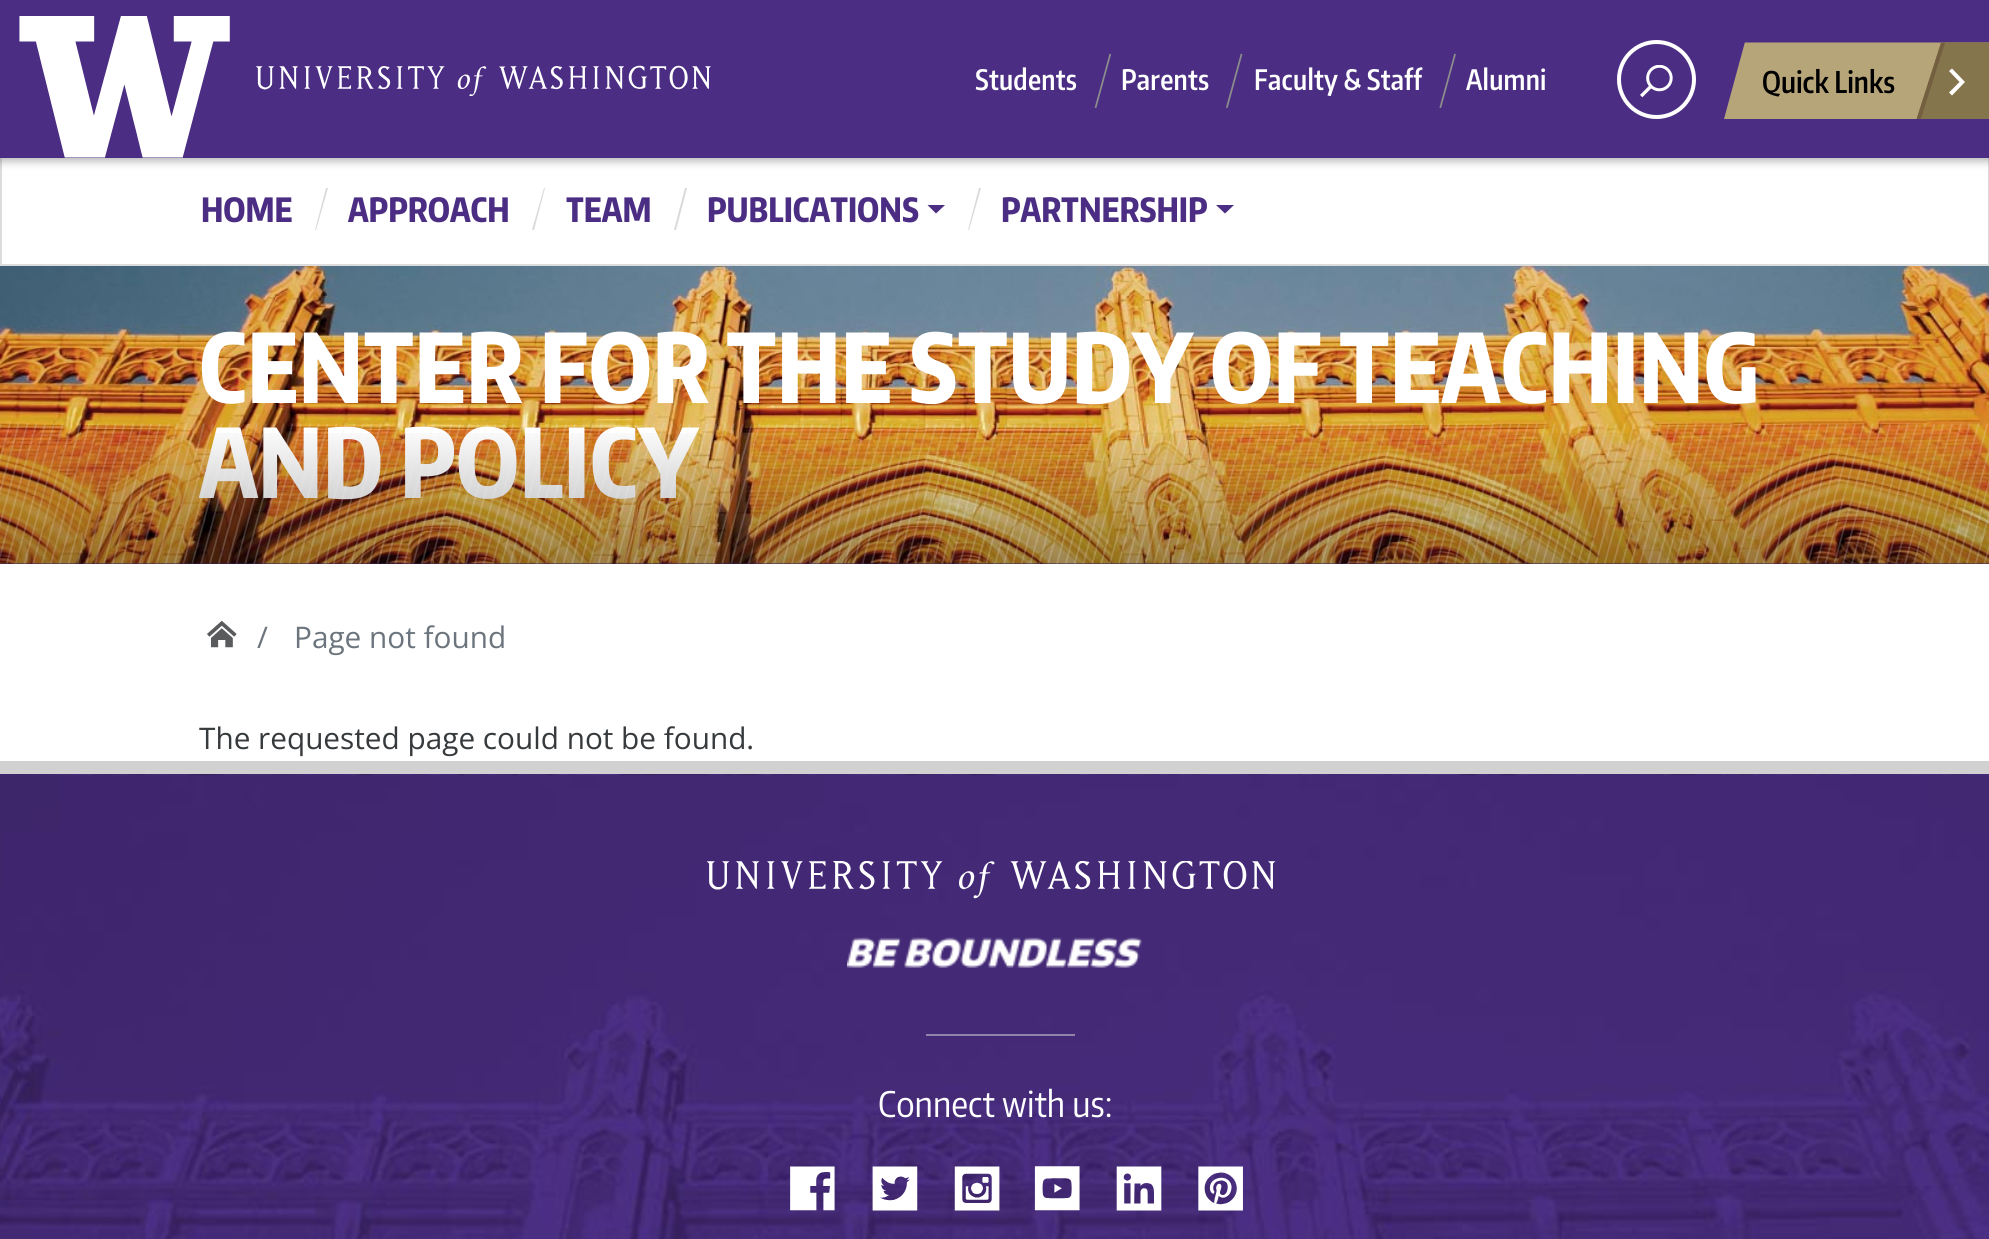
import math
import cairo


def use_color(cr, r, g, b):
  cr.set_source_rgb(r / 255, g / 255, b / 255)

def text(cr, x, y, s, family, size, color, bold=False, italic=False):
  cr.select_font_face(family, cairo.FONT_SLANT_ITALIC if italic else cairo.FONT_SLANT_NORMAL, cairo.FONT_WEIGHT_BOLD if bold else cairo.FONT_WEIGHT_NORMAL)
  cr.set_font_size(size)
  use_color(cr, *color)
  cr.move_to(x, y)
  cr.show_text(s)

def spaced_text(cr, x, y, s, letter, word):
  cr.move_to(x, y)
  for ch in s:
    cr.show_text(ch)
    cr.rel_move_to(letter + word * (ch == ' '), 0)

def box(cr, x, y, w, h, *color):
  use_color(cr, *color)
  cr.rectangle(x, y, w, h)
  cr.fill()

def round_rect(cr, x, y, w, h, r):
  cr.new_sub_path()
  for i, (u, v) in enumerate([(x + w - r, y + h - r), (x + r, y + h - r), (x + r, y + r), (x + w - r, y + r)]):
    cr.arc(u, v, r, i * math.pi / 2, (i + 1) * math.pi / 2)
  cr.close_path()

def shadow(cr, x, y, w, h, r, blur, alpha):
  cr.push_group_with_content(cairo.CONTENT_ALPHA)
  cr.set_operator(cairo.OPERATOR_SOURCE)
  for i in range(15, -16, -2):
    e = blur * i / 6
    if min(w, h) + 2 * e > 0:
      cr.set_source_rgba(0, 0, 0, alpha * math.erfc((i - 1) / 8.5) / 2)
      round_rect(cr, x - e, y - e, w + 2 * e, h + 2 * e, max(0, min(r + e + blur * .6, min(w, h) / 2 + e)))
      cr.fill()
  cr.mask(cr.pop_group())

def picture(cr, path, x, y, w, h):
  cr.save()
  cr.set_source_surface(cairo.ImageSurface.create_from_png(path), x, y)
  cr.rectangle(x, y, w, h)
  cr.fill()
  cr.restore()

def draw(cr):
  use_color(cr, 255, 255, 255)
  cr.paint()
  use_color(cr, 219, 219, 219)
  cr.new_path()
  cr.move_to(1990, 158)
  cr.line_to(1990, 266)
  cr.line_to(1988, 264)
  cr.line_to(1988, 158)
  cr.close_path()
  cr.fill()
  cr.set_source_rgba(0, 0, 0, 0.14)
  cr.new_path()
  cr.move_to(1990, 266)
  cr.line_to(0, 266)
  cr.line_to(2, 264)
  cr.line_to(1988, 264)
  cr.close_path()
  cr.fill()
  cr.new_path()
  cr.move_to(0, 266)
  cr.line_to(0, 158)
  cr.line_to(2, 158)
  cr.line_to(2, 264)
  cr.close_path()
  cr.fill()
  use_color(cr, 0, 0, 0)
  shadow(cr, 0, 4, 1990, 157, 0, 4.5, 0.3)
  box(cr, 0, 0, 1989, 158, 75, 46, 131)
  picture(cr, "img_01.png", 19, 16, 211, 142)
  picture(cr, "img_02.png", 256, 65, 455, 31)
  picture(cr, "img_03.png", 1094, 53, 17, 55)
  picture(cr, "img_04.png", 1226, 53, 17, 55)
  picture(cr, "img_05.png", 1439, 53, 17, 55)
  cr.arc(1656.5, 79.5, 37.5, 0, 2 * math.pi)
  use_color(cr, 255, 255, 255)
  cr.set_line_width(4)
  cr.stroke()
  picture(cr, "img_06.png", 1640, 65, 33, 33)
  picture(cr, "img_07.png", 1724, 42, 265, 77)
  cr.new_path()
  cr.move_to(1965, 82)
  cr.line_to(1952, 68.5)
  cr.line_to(1949, 71)
  cr.line_to(1959.5, 82)
  cr.line_to(1949, 92.5)
  cr.line_to(1952, 95.5)
  cr.close_path()
  cr.fill()
  use_color(cr, 217, 217, 217)
  cr.new_path()
  cr.move_to(326, 188)
  cr.line_to(328, 188)
  cr.line_to(316, 230)
  cr.line_to(315, 230)
  cr.close_path()
  cr.fill()
  cr.new_path()
  cr.move_to(544, 188)
  cr.line_to(545, 188)
  cr.line_to(534, 230)
  cr.line_to(532, 230)
  cr.close_path()
  cr.fill()
  cr.new_path()
  cr.move_to(685, 188)
  cr.line_to(687, 188)
  cr.line_to(676, 230)
  cr.line_to(674, 230)
  cr.close_path()
  cr.fill()
  use_color(cr, 75, 46, 131)
  cr.new_path()
  cr.move_to(927.5, 205)
  cr.line_to(945, 205)
  cr.line_to(936, 213.5)
  cr.close_path()
  cr.fill()
  use_color(cr, 217, 217, 217)
  cr.new_path()
  cr.move_to(979, 188)
  cr.line_to(981, 188)
  cr.line_to(969, 230)
  cr.line_to(968, 230)
  cr.close_path()
  cr.fill()
  use_color(cr, 75, 46, 131)
  cr.new_path()
  cr.move_to(1216, 205)
  cr.line_to(1234, 205)
  cr.line_to(1225, 213.5)
  cr.close_path()
  cr.fill()
  box(cr, 0, 563, 1989, 1, 75, 46, 131)
  picture(cr, "img_08.png", 0, 266, 1989, 298)
  picture(cr, "img_10.png", 207, 620, 30, 28)
  picture(cr, "img_11.png", 0, 774, 1989, 465)
  box(cr, 0, 761, 1989, 13, 209, 209, 209)
  picture(cr, "img_12.png", 706, 861, 570, 38)
  picture(cr, "img_13.png", 847, 937, 295, 31)
  box(cr, 926, 1034, 149, 2, 145, 132, 170)
  picture(cr, "img_14.png", 790, 1166, 45, 45)
  picture(cr, "img_15.png", 872, 1166, 46, 45)
  picture(cr, "img_16.png", 954, 1166, 46, 45)
  picture(cr, "img_17.png", 1034, 1166, 46, 45)
  picture(cr, "img_18.png", 1116, 1166, 46, 45)
  picture(cr, "img_19.png", 1198, 1166, 45, 45)
  cr.select_font_face("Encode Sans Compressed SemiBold")
  cr.set_font_size(28)
  use_color(cr, 255, 255, 255)
  spaced_text(cr, 975, 90, "Students", 0.25, 0)
  spaced_text(cr, 1121, 90, "Parents", 0.25, 0)
  spaced_text(cr, 1254, 90, "Faculty & Staff", 0.25, 0)
  spaced_text(cr, 1466, 90, "Alumni", 0.25, 0)
  text(cr, 1762, 93, "Quick Links", "Encode Sans Compressed SemiBold", 29.75, (0, 0, 0))
  text(cr, 201, 222, "HOME", "Encode Sans Compressed ExtraBold", 33.25, (75, 46, 131))
  text(cr, 348, 222, "APPROACH", "Encode Sans Compressed ExtraBold", 33.25, (75, 46, 131))
  text(cr, 566, 222, "TEAM", "Encode Sans Compressed ExtraBold", 33.25, (75, 46, 131))
  text(cr, 707, 222, "PUBLICATIONS", "Encode Sans Compressed ExtraBold", 33.25, (75, 46, 131))
  text(cr, 1001, 222, "PARTNERSHIP", "Encode Sans Compressed ExtraBold", 33.25, (75, 46, 131))
  text(cr, 199, 403, "CENTER FOR THE STUDY OF TEACHING", "Encode Sans Compressed ExtraBold", 95.25, (255, 255, 255))
  text(cr, 199, 498, "AND POLICY", "Encode Sans Compressed ExtraBold", 95.25, (255, 255, 255))
  gradient = cairo.LinearGradient(0, 424, 0, 564)
  gradient.add_color_stop_rgba(0, 0, 0, 0, 0)
  gradient.add_color_stop_rgba(1, 0, 0, 0, 0.32)
  cr.set_source(gradient)
  cr.rectangle(0, 433, 1989, 131)
  cr.fill()
  picture(cr, "img_09.png", 0, 423, 1989, 141)
  text(cr, 257, 648, "/", "Open Sans", 29.75, (108, 117, 125))
  text(cr, 294, 648, "Page not found", "Open Sans", 29.75, (108, 117, 125))
  text(cr, 199, 749, "The requested page could not be found.", "Open Sans", 29.75, (55, 58, 60))
  text(cr, 878, 1117, "Connect with us:", "Encode Sans Condensed", 35, (255, 255, 255))


surface = cairo.ImageSurface(cairo.FORMAT_RGB24, 1989, 1239)
cr = cairo.Context(surface)
options = cairo.FontOptions()
options.set_hint_metrics(cairo.HINT_METRICS_OFF)
options.set_hint_style(cairo.HINT_STYLE_NONE)
cr.set_font_options(options)
cr.set_miter_limit(4)
draw(cr)
surface.write_to_png("out.png")
